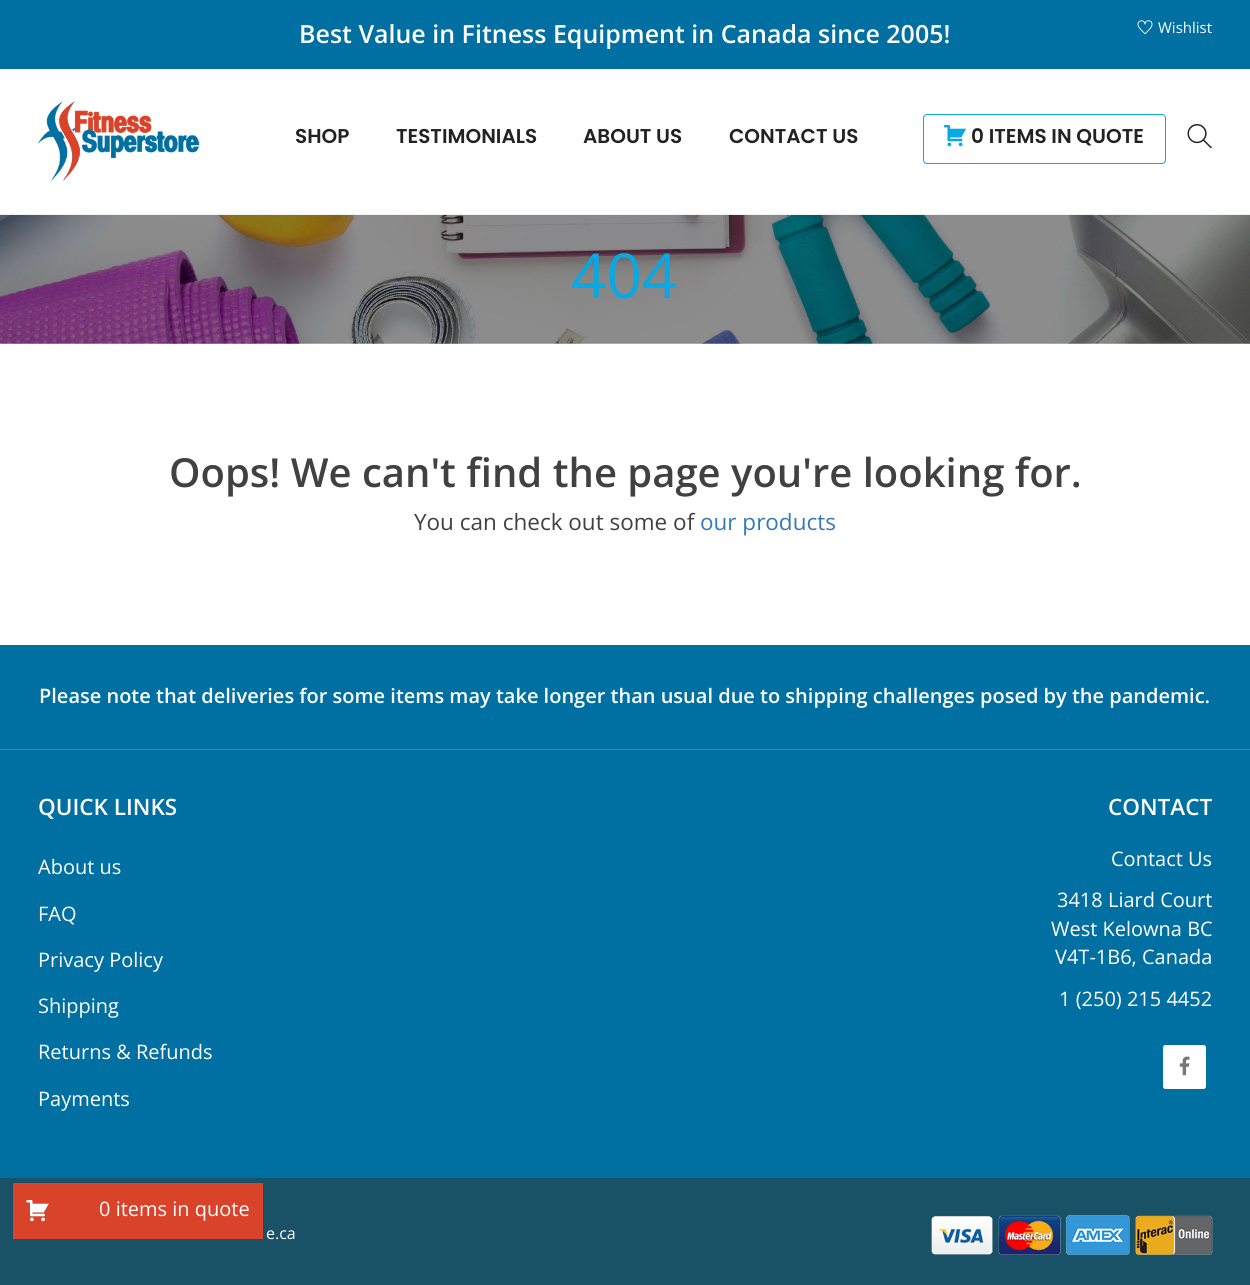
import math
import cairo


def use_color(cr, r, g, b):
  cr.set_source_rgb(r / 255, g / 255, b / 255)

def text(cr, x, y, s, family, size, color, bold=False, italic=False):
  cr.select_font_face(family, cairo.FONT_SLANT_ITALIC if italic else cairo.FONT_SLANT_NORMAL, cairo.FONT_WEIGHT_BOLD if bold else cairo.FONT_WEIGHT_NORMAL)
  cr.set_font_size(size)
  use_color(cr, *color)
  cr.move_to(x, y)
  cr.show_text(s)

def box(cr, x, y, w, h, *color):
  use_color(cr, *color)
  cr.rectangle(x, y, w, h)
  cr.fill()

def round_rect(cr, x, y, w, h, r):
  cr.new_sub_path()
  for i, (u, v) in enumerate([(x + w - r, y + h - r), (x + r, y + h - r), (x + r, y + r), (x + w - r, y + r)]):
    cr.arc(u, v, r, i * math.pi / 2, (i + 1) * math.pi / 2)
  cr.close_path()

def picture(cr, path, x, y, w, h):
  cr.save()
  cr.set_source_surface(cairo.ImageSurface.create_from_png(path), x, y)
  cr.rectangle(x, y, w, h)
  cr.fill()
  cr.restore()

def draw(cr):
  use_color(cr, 255, 255, 255)
  cr.paint()
  box(cr, 0, 0, 1250, 69, 0, 111, 162)
  picture(cr, "img_01.png", 1137, 20, 16, 15)
  box(cr, 0, 214, 1250, 1, 240, 240, 240)
  picture(cr, "img_02.png", 37, 101, 163, 81)
  round_rect(cr, 923.5, 114.5, 242, 49, 3.5)
  use_color(cr, 7, 168, 228)
  cr.set_line_width(1)
  cr.stroke()
  picture(cr, "img_03.png", 943, 125, 24, 22)
  picture(cr, "img_04.png", 1187, 124, 25, 25)
  picture(cr, "img_05.png", 0, 215, 1250, 129)
  box(cr, 0, 645, 1250, 104, 0, 111, 162)
  box(cr, 0, 749, 1250, 1, 51, 140, 181)
  box(cr, 0, 750, 1250, 428, 0, 111, 162)
  box(cr, 0, 1178, 1250, 107, 25, 81, 103)
  box(cr, 13, 1183, 250, 56, 217, 67, 42)
  picture(cr, "img_06.png", 26, 1200, 23, 22)
  use_color(cr, 255, 255, 255)
  round_rect(cr, 1163, 1045, 43, 44, 2.5)
  cr.fill()
  picture(cr, "img_07.png", 1179, 1056, 11, 20)
  picture(cr, "img_08.png", 931, 1215, 282, 40)
  text(cr, 299, 43, "Best Value in Fitness Equipment in Canada since 2005!", "Open Sans SemiBold", 25, (255, 255, 255))
  text(cr, 1158, 33, "Wishlist", "Open Sans", 15, (255, 255, 255))
  text(cr, 295, 143, "SHOP", "Poppins SemiBold", 20, (34, 34, 34))
  text(cr, 396, 143, "TESTIMONIALS", "Poppins SemiBold", 20, (34, 34, 34))
  text(cr, 583, 143, "ABOUT US", "Poppins SemiBold", 20, (34, 34, 34))
  text(cr, 729, 143, "CONTACT US", "Poppins SemiBold", 20, (34, 34, 34))
  text(cr, 971, 143, "0 ITEMS IN QUOTE", "Poppins SemiBold", 20, (34, 34, 34))
  text(cr, 571, 298, "404", "Open Sans", 62, (7, 168, 228))
  text(cr, 169, 487, "Oops! We can't find the page you're looking for.", "Open Sans SemiBold", 40, (65, 65, 65))
  text(cr, 414, 530, "You can check out some of", "Open Sans", 22.5, (65, 65, 65))
  text(cr, 700, 530, "our products", "Open Sans", 22.5, (51, 122, 183))
  text(cr, 39, 703, "Please note that deliveries for some items may take longer than usual due to shipping challenges posed by the pandemic.", "Open Sans SemiBold", 20, (255, 255, 255))
  text(cr, 38, 815, "QUICK LINKS", "Open Sans SemiBold", 22.5, (255, 255, 255))
  text(cr, 38, 874, "About us", "Open Sans", 20, (255, 255, 255))
  text(cr, 38, 921, "FAQ", "Open Sans", 20, (255, 255, 255))
  text(cr, 38, 967, "Privacy Policy", "Open Sans", 20, (255, 255, 255))
  text(cr, 38, 1013, "Shipping", "Open Sans", 20, (255, 255, 255))
  text(cr, 38, 1059, "Returns & Refunds", "Open Sans", 20, (255, 255, 255))
  text(cr, 38, 1106, "Payments", "Open Sans", 20, (255, 255, 255))
  text(cr, 99, 1216, "0 items in quote", "Open Sans", 20, (255, 255, 255))
  text(cr, 1108, 815, "CONTACT", "Open Sans SemiBold", 22.5, (255, 255, 255))
  text(cr, 1111, 866, "Contact Us", "Open Sans", 20, (255, 255, 255))
  text(cr, 1057, 907, "3418 Liard Court", "Open Sans", 20, (255, 255, 255))
  text(cr, 1051, 936, "West Kelowna BC", "Open Sans", 20, (255, 255, 255))
  text(cr, 1055, 964, "V4T-1B6, Canada", "Open Sans", 20, (255, 255, 255))
  text(cr, 1059, 1006, "1 (250) 215 4452", "Open Sans", 20, (255, 255, 255))
  text(cr, 266, 1239, "e.ca", "Open Sans", 16, (255, 255, 255))


surface = cairo.ImageSurface(cairo.FORMAT_RGB24, 1250, 1285)
cr = cairo.Context(surface)
options = cairo.FontOptions()
options.set_hint_metrics(cairo.HINT_METRICS_OFF)
options.set_hint_style(cairo.HINT_STYLE_NONE)
cr.set_font_options(options)
cr.set_miter_limit(4)
draw(cr)
surface.write_to_png("out.png")
